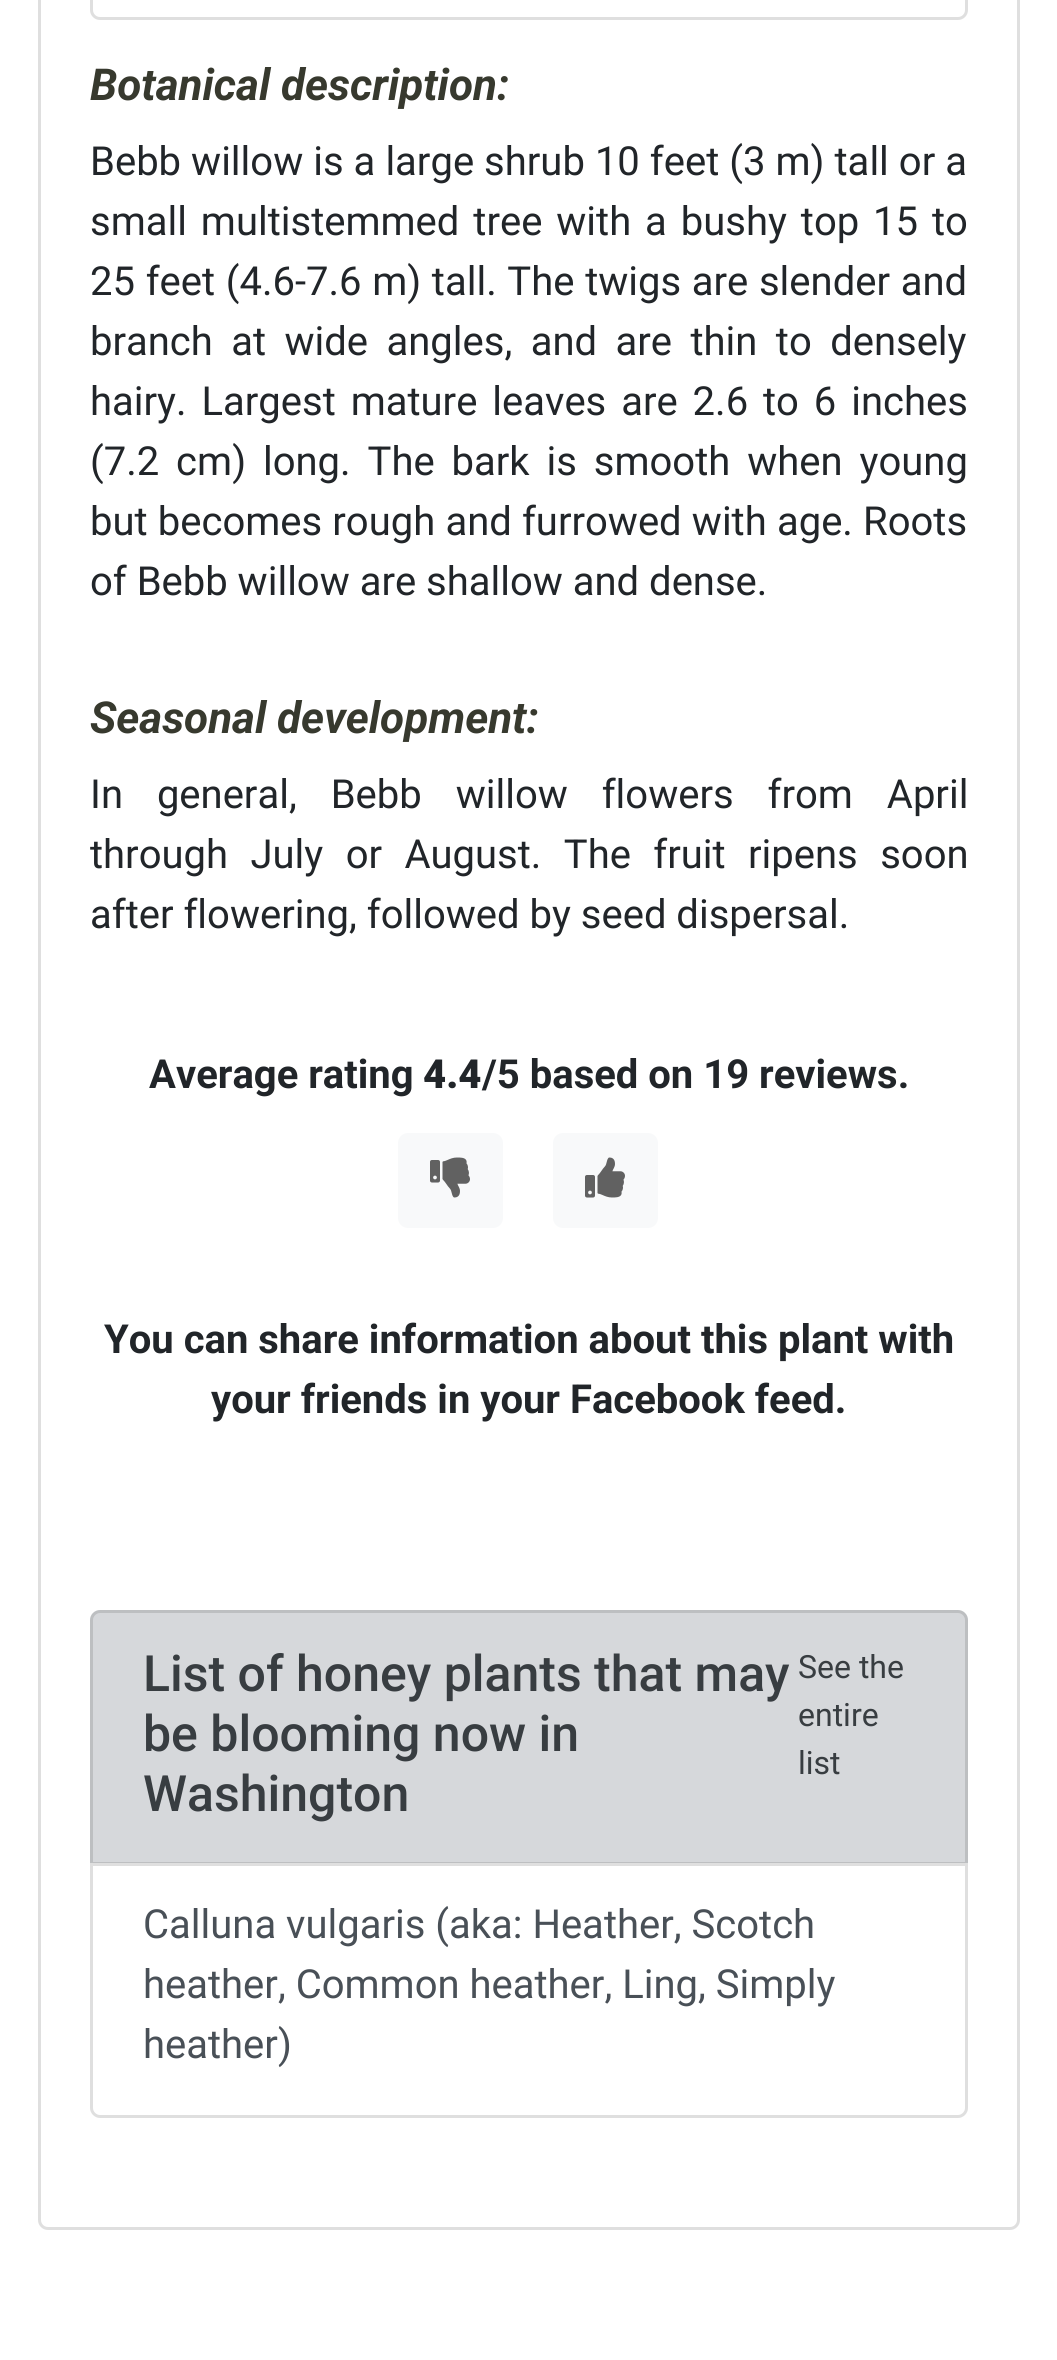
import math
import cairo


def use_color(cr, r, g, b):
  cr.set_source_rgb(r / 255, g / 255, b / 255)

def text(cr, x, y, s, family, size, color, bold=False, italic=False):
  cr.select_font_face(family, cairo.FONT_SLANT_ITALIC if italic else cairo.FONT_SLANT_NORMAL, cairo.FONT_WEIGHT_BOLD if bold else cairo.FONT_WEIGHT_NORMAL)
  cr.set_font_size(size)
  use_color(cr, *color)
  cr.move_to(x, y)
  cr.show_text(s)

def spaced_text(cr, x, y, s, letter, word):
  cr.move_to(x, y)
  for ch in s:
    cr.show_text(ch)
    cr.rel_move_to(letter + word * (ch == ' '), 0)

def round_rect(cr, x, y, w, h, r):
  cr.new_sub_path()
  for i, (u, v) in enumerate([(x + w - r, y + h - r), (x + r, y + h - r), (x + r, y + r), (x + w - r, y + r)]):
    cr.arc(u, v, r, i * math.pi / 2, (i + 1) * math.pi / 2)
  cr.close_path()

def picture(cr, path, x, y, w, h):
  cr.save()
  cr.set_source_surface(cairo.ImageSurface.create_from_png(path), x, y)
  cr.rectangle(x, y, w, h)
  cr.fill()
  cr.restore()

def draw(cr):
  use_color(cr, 255, 255, 255)
  cr.paint()
  round_rect(cr, 39.5, -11.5, 979, 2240, 8.5)
  use_color(cr, 223, 223, 223)
  cr.set_line_width(3)
  cr.stroke()
  round_rect(cr, 91.5, -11.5, 875, 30, 8.5)
  cr.stroke()
  use_color(cr, 248, 249, 250)
  round_rect(cr, 398, 1133, 105, 95, 10)
  cr.fill()
  picture(cr, "img_01.png", 430, 1157, 40, 41)
  round_rect(cr, 553, 1133, 105, 95, 10)
  cr.fill()
  picture(cr, "img_02.png", 585, 1157, 40, 41)
  use_color(cr, 214, 216, 219)
  cr.new_path()
  cr.move_to(100, 1610)
  cr.line_to(958, 1610)
  cr.curve_to(963.5, 1610, 968, 1614.5, 968, 1620)
  cr.line_to(968, 1865)
  cr.line_to(90, 1865)
  cr.line_to(90, 1620)
  cr.curve_to(90, 1614.5, 94.5, 1610, 100, 1610)
  cr.close_path()
  cr.fill()
  cr.new_path()
  cr.move_to(100, 1611.5)
  cr.line_to(958, 1611.5)
  cr.curve_to(962.5, 1611.5, 966.5, 1615.5, 966.5, 1620)
  cr.line_to(966.5, 1863.5)
  cr.line_to(91.5, 1863.5)
  cr.line_to(91.5, 1620)
  cr.curve_to(91.5, 1615.5, 95.5, 1611.5, 100, 1611.5)
  cr.close_path()
  cr.set_source_rgba(0, 0, 0, 0.12)
  cr.stroke()
  use_color(cr, 255, 255, 255)
  cr.new_path()
  cr.move_to(91.5, 1864.5)
  cr.line_to(966.5, 1864.5)
  cr.line_to(966.5, 2108)
  cr.curve_to(966.5, 2112.5, 962.5, 2116.5, 958, 2116.5)
  cr.line_to(100, 2116.5)
  cr.curve_to(95.5, 2116.5, 91.5, 2112.5, 91.5, 2108)
  cr.close_path()
  cr.fill_preserve()
  use_color(cr, 223, 223, 223)
  cr.stroke()
  text(cr, 90, 100, "Botanical description:", "Roboto", 44, (55, 57, 46), bold=True, italic=True)
  cr.select_font_face("Roboto")
  cr.set_font_size(40)
  use_color(cr, 33, 37, 41)
  spaced_text(cr, 90, 175, "Bebb willow is a large shrub 10 feet (3 m) tall or a", 0, 0.1)
  spaced_text(cr, 90, 235, "small multistemmed tree with a bushy top 15 to", 0, 4)
  spaced_text(cr, 90, 295, "25 feet (4.6-7.6 m) tall. The twigs are slender and", 0, 0.75)
  spaced_text(cr, 90, 355, "branch at wide angles, and are thin to densely", 0, 8.5)
  spaced_text(cr, 90, 415, "hairy. Largest mature leaves are 2.6 to 6 inches", 0, 5)
  spaced_text(cr, 90, 475, "(7.2 cm) long. The bark is smooth when young", 0, 7)
  spaced_text(cr, 90, 535, "but becomes rough and furrowed with age. Roots", 0, 0.25)
  text(cr, 90, 595, "of Bebb willow are shallow and dense.", "Roboto", 40, (33, 37, 41))
  text(cr, 90, 733, "Seasonal development:", "Roboto", 44, (55, 57, 46), bold=True, italic=True)
  cr.select_font_face("Roboto")
  cr.set_font_size(40)
  use_color(cr, 33, 37, 41)
  spaced_text(cr, 90, 808, "In general, Bebb willow flowers from April", 0, 24)
  spaced_text(cr, 90, 868, "through July or August. The fruit ripens soon", 0, 12.5)
  text(cr, 90, 928, "after flowering, followed by seed dispersal.", "Roboto", 40, (33, 37, 41))
  text(cr, 149, 1088, "Average rating", "Roboto", 40, (33, 37, 41), bold=True)
  text(cr, 423, 1088, "4.4", "Roboto Black", 40, (33, 37, 41))
  text(cr, 482, 1088, "/5 based on 19 reviews.", "Roboto", 40, (33, 37, 41), bold=True)
  text(cr, 104, 1353, "You can share information about this plant with", "Roboto", 40, (33, 37, 41), bold=True)
  text(cr, 211, 1413, "your friends in your Facebook feed.", "Roboto", 40, (33, 37, 41), bold=True)
  text(cr, 143, 1691, "List of honey plants that may", "Roboto Medium", 50, (56, 61, 65))
  text(cr, 143, 1751, "be blooming now in", "Roboto Medium", 50, (56, 61, 65))
  text(cr, 143, 1811, "Washington", "Roboto Medium", 50, (56, 61, 65))
  text(cr, 798, 1678, "See the", "Roboto", 32, (56, 61, 65))
  text(cr, 798, 1726, "entire", "Roboto", 32, (56, 61, 65))
  text(cr, 798, 1774, "list", "Roboto", 32, (56, 61, 65))
  text(cr, 143, 1938, "Calluna vulgaris (aka: Heather, Scotch", "Roboto", 40, (73, 80, 87))
  text(cr, 143, 1998, "heather, Common heather, Ling, Simply", "Roboto", 40, (73, 80, 87))
  text(cr, 143, 2058, "heather)", "Roboto", 40, (73, 80, 87))


surface = cairo.ImageSurface(cairo.FORMAT_RGB24, 1057, 2360)
cr = cairo.Context(surface)
options = cairo.FontOptions()
options.set_hint_metrics(cairo.HINT_METRICS_OFF)
options.set_hint_style(cairo.HINT_STYLE_NONE)
cr.set_font_options(options)
cr.set_miter_limit(4)
draw(cr)
surface.write_to_png("out.png")
